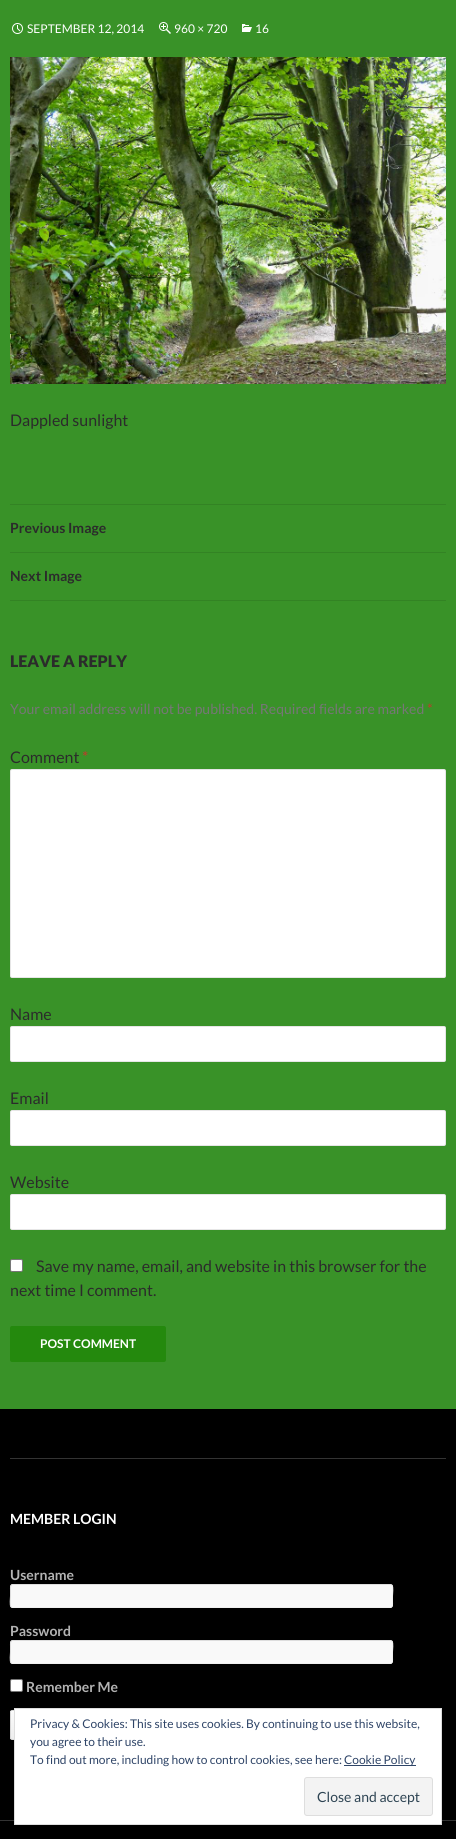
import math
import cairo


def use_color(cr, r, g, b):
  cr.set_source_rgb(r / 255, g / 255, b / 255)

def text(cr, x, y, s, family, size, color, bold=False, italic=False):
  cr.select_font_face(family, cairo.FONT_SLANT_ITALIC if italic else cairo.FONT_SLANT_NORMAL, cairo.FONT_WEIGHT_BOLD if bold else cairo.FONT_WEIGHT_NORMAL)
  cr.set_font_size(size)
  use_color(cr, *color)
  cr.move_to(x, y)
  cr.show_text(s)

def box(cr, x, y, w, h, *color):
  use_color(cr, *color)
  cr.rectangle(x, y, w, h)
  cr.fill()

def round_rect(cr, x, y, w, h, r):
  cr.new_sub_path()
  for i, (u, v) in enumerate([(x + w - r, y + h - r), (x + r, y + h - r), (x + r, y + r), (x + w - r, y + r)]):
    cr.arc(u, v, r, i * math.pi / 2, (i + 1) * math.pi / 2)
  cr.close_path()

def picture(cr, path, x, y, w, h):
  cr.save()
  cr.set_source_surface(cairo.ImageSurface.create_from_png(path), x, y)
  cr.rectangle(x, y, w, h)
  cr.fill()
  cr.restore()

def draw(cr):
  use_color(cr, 57, 146, 40)
  cr.paint()
  picture(cr, "img_01.png", 12, 23, 11, 11)
  picture(cr, "img_02.png", 159, 22, 12, 12)
  picture(cr, "img_03.png", 242, 24, 10, 8)
  picture(cr, "img_04.png", 10, 57, 436, 327)
  box(cr, 10, 504, 436, 1, 51, 131, 36)
  box(cr, 10, 552, 436, 1, 51, 131, 36)
  box(cr, 10, 600, 436, 1, 51, 131, 36)
  use_color(cr, 255, 255, 255)
  round_rect(cr, 10, 769, 436, 209, 2)
  cr.fill()
  round_rect(cr, 10.5, 769.5, 435, 208, 1.5)
  cr.set_source_rgba(0, 0, 0, 0.1)
  cr.set_line_width(1)
  cr.stroke()
  use_color(cr, 255, 255, 255)
  round_rect(cr, 10, 1026, 436, 36, 2)
  cr.fill()
  round_rect(cr, 10.5, 1026.5, 435, 35, 1.5)
  cr.set_source_rgba(0, 0, 0, 0.1)
  cr.stroke()
  use_color(cr, 255, 255, 255)
  round_rect(cr, 10, 1110, 436, 36, 2)
  cr.fill()
  round_rect(cr, 10.5, 1110.5, 435, 35, 1.5)
  cr.set_source_rgba(0, 0, 0, 0.1)
  cr.stroke()
  use_color(cr, 255, 255, 255)
  round_rect(cr, 10, 1194, 436, 36, 2)
  cr.fill()
  round_rect(cr, 10.5, 1194.5, 435, 35, 1.5)
  cr.set_source_rgba(0, 0, 0, 0.1)
  cr.stroke()
  use_color(cr, 255, 255, 255)
  round_rect(cr, 10.5, 1259.5, 12, 12, 1.5)
  cr.fill_preserve()
  use_color(cr, 118, 118, 118)
  cr.stroke()
  use_color(cr, 36, 137, 13)
  round_rect(cr, 10, 1326, 156, 36, 2)
  cr.fill()
  box(cr, 0, 1409, 456, 411, 0, 0, 0)
  box(cr, 0, 1820, 456, 1, 51, 51, 51)
  box(cr, 10, 1458, 436, 1, 51, 51, 51)
  use_color(cr, 249, 249, 249)
  round_rect(cr, 10, 1584, 383, 24, 3)
  cr.fill()
  cr.new_path()
  cr.move_to(392, 1585)
  cr.curve_to(393.5, 1587, 392.5, 1594, 392.5, 1596)
  cr.line_to(392.5, 1602)
  cr.curve_to(392.5, 1604, 393, 1607.5, 390, 1607.5)
  cr.line_to(13, 1607.5)
  cr.line_to(11, 1607)
  use_color(cr, 241, 241, 241)
  cr.stroke()
  cr.new_path()
  cr.move_to(11, 1607)
  cr.curve_to(9.5, 1605, 10.5, 1598, 10.5, 1596)
  cr.line_to(10.5, 1590)
  cr.curve_to(10.5, 1588, 10, 1584.5, 13, 1584.5)
  cr.line_to(390, 1584.5)
  cr.line_to(392, 1585)
  use_color(cr, 221, 221, 221)
  cr.stroke()
  use_color(cr, 249, 249, 249)
  round_rect(cr, 10, 1640, 383, 24, 3)
  cr.fill()
  cr.new_path()
  cr.move_to(392, 1641)
  cr.curve_to(393.5, 1643, 392.5, 1650, 392.5, 1652)
  cr.line_to(392.5, 1658)
  cr.curve_to(392.5, 1660, 393, 1663.5, 390, 1663.5)
  cr.line_to(13, 1663.5)
  cr.line_to(11, 1663)
  use_color(cr, 241, 241, 241)
  cr.stroke()
  cr.new_path()
  cr.move_to(11, 1663)
  cr.curve_to(9.5, 1661, 10.5, 1654, 10.5, 1652)
  cr.line_to(10.5, 1646)
  cr.curve_to(10.5, 1644, 10, 1640.5, 13, 1640.5)
  cr.line_to(390, 1640.5)
  cr.line_to(392, 1641)
  use_color(cr, 221, 221, 221)
  cr.stroke()
  use_color(cr, 255, 255, 255)
  round_rect(cr, 10.5, 1679.5, 12, 12, 1.5)
  cr.fill_preserve()
  use_color(cr, 118, 118, 118)
  cr.stroke()
  gradient = cairo.LinearGradient(48, 1711, 48, 1739)
  gradient.add_color_stop_rgba(0, 0.984, 0.984, 0.984, 1)
  gradient.add_color_stop_rgba(1, 0.933, 0.933, 0.933, 1)
  cr.set_source(gradient)
  cr.rectangle(10, 1711, 4, 28)
  cr.fill()
  cr.set_source_rgba(1, 1, 1, 0.5)
  cr.set_fill_rule(cairo.FILL_RULE_EVEN_ODD)
  cr.new_path()
  cr.move_to(12, 1712)
  cr.line_to(83, 1712)
  cr.line_to(84, 1713)
  cr.curve_to(84, 1708, 74, 1711, 71, 1711)
  cr.line_to(24, 1711)
  cr.curve_to(14, 1711, 11, 1707, 11, 1714)
  cr.close_path()
  cr.move_to(84, 1735)
  cr.line_to(84, 1738)
  cr.close_path()
  cr.fill()
  round_rect(cr, 10.5, 1710.5, 74, 29, 1.5)
  use_color(cr, 217, 217, 217)
  cr.stroke()
  box(cr, 0, 1821, 456, 18, 0, 0, 0)
  use_color(cr, 255, 255, 255)
  cr.rectangle(14.5, 1708.5, 427, 116)
  cr.fill_preserve()
  use_color(cr, 222, 222, 222)
  cr.stroke()
  box(cr, 344, 1765, 72, 1, 46, 68, 103)
  use_color(cr, 243, 243, 243)
  round_rect(cr, 304.5, 1777.5, 128, 38, 2.5)
  cr.fill_preserve()
  use_color(cr, 222, 222, 222)
  cr.stroke()
  text(cr, 27, 33, "SEPTEMBER 12, 2014", "Lato", 12, (255, 255, 255))
  text(cr, 174, 33, "960 × 720", "Lato", 12, (255, 255, 255))
  text(cr, 255, 33, "16", "Lato", 12, (255, 255, 255))
  text(cr, 10, 426, "Dappled sunlight", "Lato", 16, (43, 43, 43))
  text(cr, 10, 533, "Previous Image", "Lato", 14, (43, 43, 43), bold=True)
  text(cr, 10, 581, "Next Image", "Lato", 14, (43, 43, 43), bold=True)
  text(cr, 10, 667, "LEAVE A REPLY", "Lato Black", 16, (43, 43, 43))
  text(cr, 10, 714, "Your email address will not be published. Required fields are marked", "Lato", 14, (118, 118, 118))
  text(cr, 427, 714, "*", "Lato", 14, (192, 57, 43))
  text(cr, 10, 763, "Comment", "Lato", 16, (43, 43, 43))
  text(cr, 82, 763, "*", "Lato", 16, (192, 57, 43))
  text(cr, 10, 1020, "Name", "Lato", 16, (43, 43, 43))
  text(cr, 10, 1104, "Email", "Lato", 16, (43, 43, 43))
  text(cr, 10, 1188, "Website", "Lato", 16, (43, 43, 43))
  text(cr, 36, 1272, "Save my name, email, and website in this browser for the", "Lato", 16, (43, 43, 43))
  text(cr, 10, 1296, "next time I comment.", "Lato", 16, (43, 43, 43))
  text(cr, 40, 1348, "POST COMMENT", "Lato", 12, (255, 255, 255), bold=True)
  text(cr, 10, 1524, "MEMBER LOGIN", "Lato", 14, (255, 255, 255), bold=True)
  text(cr, 10, 1580, "Username", "Lato", 14, (179, 179, 179), bold=True)
  text(cr, 10, 1636, "Password", "Lato", 14, (179, 179, 179), bold=True)
  text(cr, 26, 1692, "Remember Me", "Lato", 14, (179, 179, 179), bold=True)
  text(cr, 30, 1728, "Privacy & Cookies: This site uses cookies. By continuing to use this website,", "Lato", 12, (46, 68, 103))
  text(cr, 30, 1746, "you agree to their use.", "Lato", 12, (46, 68, 103))
  text(cr, 30, 1764, "To find out more, including how to control cookies, see here:", "Lato", 12, (46, 68, 103))
  text(cr, 344, 1764, "Cookie Policy", "Lato", 12, (46, 68, 103))
  text(cr, 317, 1802, "Close and accept", "Lato", 14, (46, 68, 83))


surface = cairo.ImageSurface(cairo.FORMAT_RGB24, 456, 1839)
cr = cairo.Context(surface)
options = cairo.FontOptions()
options.set_hint_metrics(cairo.HINT_METRICS_OFF)
options.set_hint_style(cairo.HINT_STYLE_NONE)
cr.set_font_options(options)
cr.set_miter_limit(4)
draw(cr)
surface.write_to_png("out.png")
